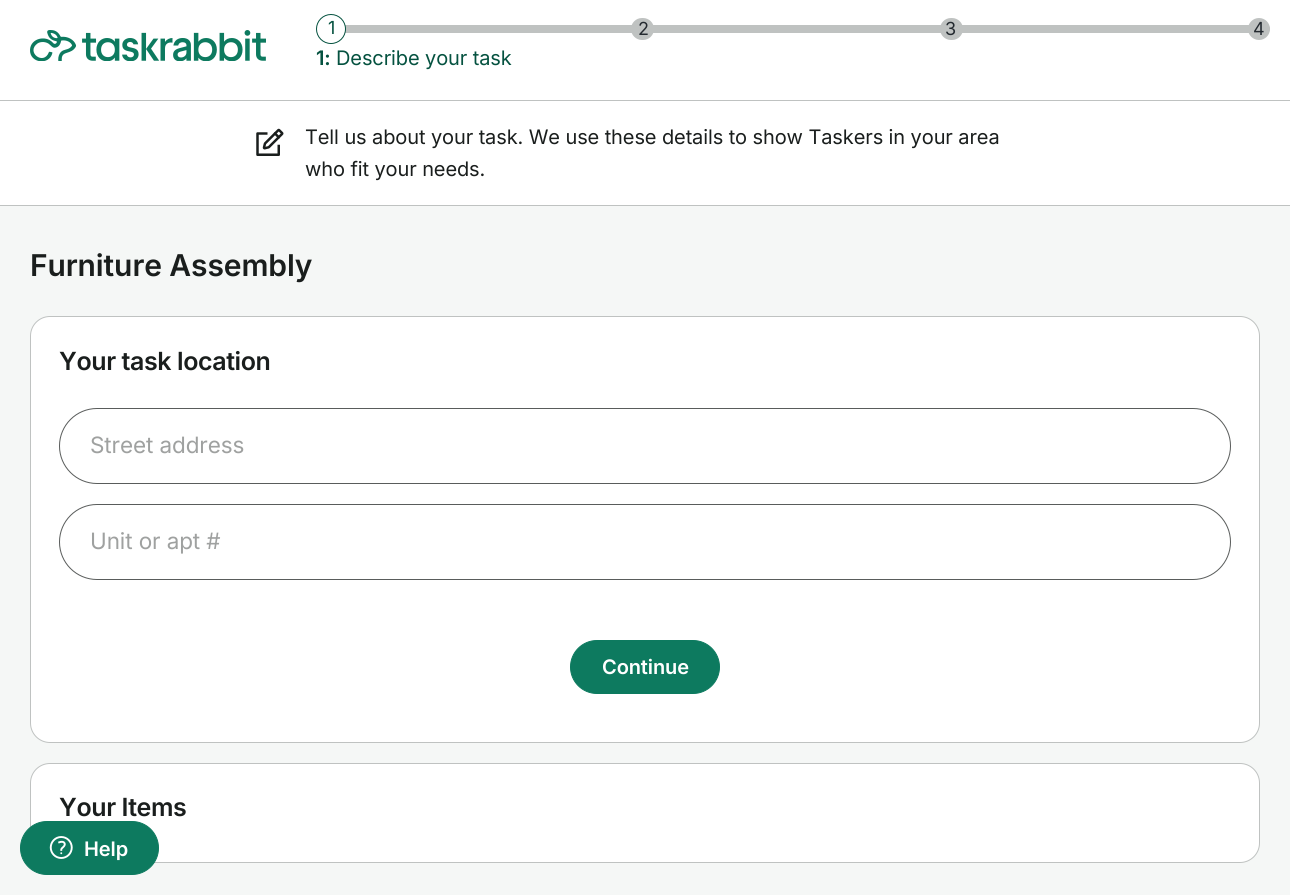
import math
import cairo


def use_color(cr, r, g, b):
  cr.set_source_rgb(r / 255, g / 255, b / 255)

def text(cr, x, y, s, family, size, color, bold=False, italic=False):
  cr.select_font_face(family, cairo.FONT_SLANT_ITALIC if italic else cairo.FONT_SLANT_NORMAL, cairo.FONT_WEIGHT_BOLD if bold else cairo.FONT_WEIGHT_NORMAL)
  cr.set_font_size(size)
  use_color(cr, *color)
  cr.move_to(x, y)
  cr.show_text(s)

def spaced_text(cr, x, y, s, letter, word):
  cr.move_to(x, y)
  for ch in s:
    cr.show_text(ch)
    cr.rel_move_to(letter + word * (ch == ' '), 0)

def box(cr, x, y, w, h, *color):
  use_color(cr, *color)
  cr.rectangle(x, y, w, h)
  cr.fill()

def round_rect(cr, x, y, w, h, r):
  cr.new_sub_path()
  for i, (u, v) in enumerate([(x + w - r, y + h - r), (x + r, y + h - r), (x + r, y + r), (x + w - r, y + r)]):
    cr.arc(u, v, r, i * math.pi / 2, (i + 1) * math.pi / 2)
  cr.close_path()

def picture(cr, path, x, y, w, h):
  cr.save()
  cr.set_source_surface(cairo.ImageSurface.create_from_png(path), x, y)
  cr.rectangle(x, y, w, h)
  cr.fill()
  cr.restore()

def draw(cr):
  use_color(cr, 255, 255, 255)
  cr.paint()
  picture(cr, "img_01.png", 30, 30, 236, 31)
  use_color(cr, 191, 194, 193)
  round_rect(cr, 316, 25, 954, 8, 4)
  cr.fill()
  use_color(cr, 255, 255, 255)
  cr.arc(331, 29, 14.5, 0, 2 * math.pi)
  cr.fill_preserve()
  use_color(cr, 5, 82, 64)
  cr.set_line_width(1)
  cr.stroke()
  use_color(cr, 191, 194, 193)
  round_rect(cr, 631, 18, 23, 22, 11)
  cr.fill()
  round_rect(cr, 940, 18, 23, 22, 11)
  cr.fill()
  cr.arc(1259, 29, 11, 0, 2 * math.pi)
  cr.fill()
  box(cr, 0, 206, 1290, 689, 245, 247, 246)
  box(cr, 0, 100, 1290, 1, 191, 194, 193)
  box(cr, 0, 205, 1290, 1, 191, 194, 193)
  picture(cr, "img_02.png", 256, 128, 28, 28)
  use_color(cr, 255, 255, 255)
  round_rect(cr, 30.5, 316.5, 1229, 426, 19.5)
  cr.fill_preserve()
  use_color(cr, 191, 194, 193)
  cr.stroke()
  round_rect(cr, 59.5, 408.5, 1171, 75, 37.5)
  use_color(cr, 89, 92, 91)
  cr.stroke()
  round_rect(cr, 59.5, 504.5, 1171, 75, 37.5)
  cr.stroke()
  use_color(cr, 13, 122, 95)
  round_rect(cr, 570.5, 640.5, 149, 53, 26.5)
  cr.fill_preserve()
  cr.stroke()
  use_color(cr, 255, 255, 255)
  round_rect(cr, 30.5, 763.5, 1229, 99, 19.5)
  cr.fill_preserve()
  use_color(cr, 191, 194, 193)
  cr.stroke()
  use_color(cr, 13, 122, 95)
  round_rect(cr, 20.5, 821.5, 138, 53, 26.5)
  cr.fill_preserve()
  cr.stroke()
  picture(cr, "img_03.png", 49, 836, 24, 23)
  text(cr, 328, 34, "1", "Inter", 18, (5, 82, 64))
  text(cr, 638, 35, "2", "Inter", 18, (36, 42, 48))
  text(cr, 945, 35, "3", "Inter", 18, (36, 42, 48))
  text(cr, 1253, 35, "4", "Inter", 18, (36, 42, 48))
  cr.select_font_face("Inter SemiBold")
  cr.set_font_size(20)
  use_color(cr, 5, 82, 64)
  spaced_text(cr, 316, 65, "1:", -0.1, 0)
  cr.select_font_face("Inter")
  spaced_text(cr, 336, 65, "Describe your task", -0.1, 0)
  use_color(cr, 26, 30, 29)
  spaced_text(cr, 305, 144, "Tell us about your task. We use these details to show Taskers in your area", -0.1, 0)
  spaced_text(cr, 305, 176, "who fit your needs.", -0.1, 0)
  cr.select_font_face("Inter SemiBold")
  cr.set_font_size(30)
  spaced_text(cr, 30, 276, "Furniture Assembly", -0.1, 0)
  cr.set_font_size(25)
  spaced_text(cr, 59, 370, "Your task location", -0.4, 0)
  cr.select_font_face("Inter")
  cr.set_font_size(22.5)
  use_color(cr, 159, 161, 160)
  spaced_text(cr, 90, 453, "Street address", -0.1, 0)
  spaced_text(cr, 90, 549, "Unit or apt #", -0.1, 0)
  cr.select_font_face("Inter SemiBold")
  cr.set_font_size(20)
  use_color(cr, 255, 255, 255)
  spaced_text(cr, 602, 674, "Continue", -0.1, 0)
  cr.set_font_size(25)
  use_color(cr, 26, 30, 29)
  spaced_text(cr, 59, 816, "Your Items", -0.4, 0)
  cr.set_font_size(20)
  use_color(cr, 255, 255, 255)
  spaced_text(cr, 84, 856, "Help", -0.1, 0)


surface = cairo.ImageSurface(cairo.FORMAT_RGB24, 1290, 895)
cr = cairo.Context(surface)
options = cairo.FontOptions()
options.set_hint_metrics(cairo.HINT_METRICS_OFF)
options.set_hint_style(cairo.HINT_STYLE_NONE)
cr.set_font_options(options)
cr.set_miter_limit(4)
draw(cr)
surface.write_to_png("out.png")
